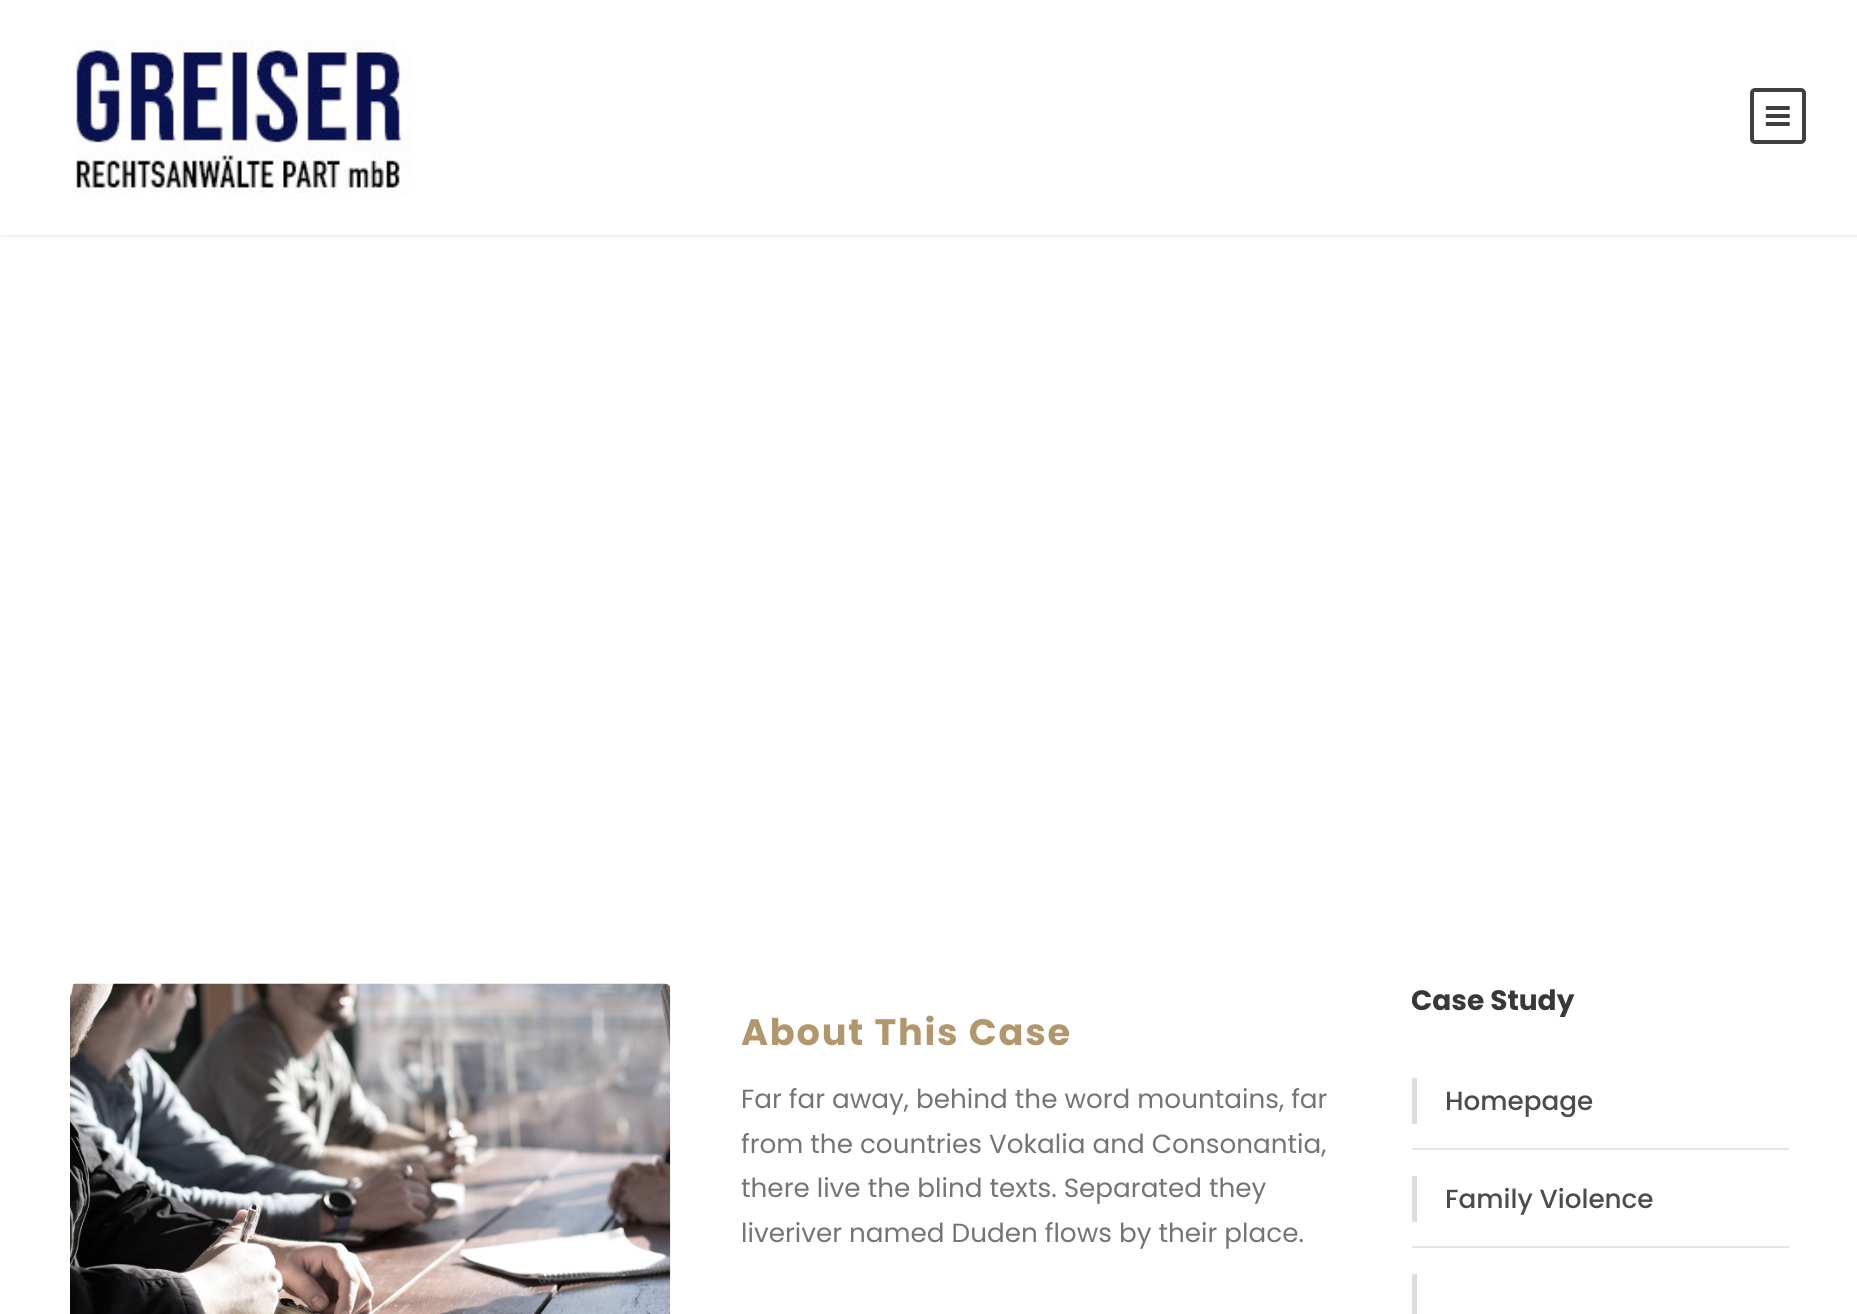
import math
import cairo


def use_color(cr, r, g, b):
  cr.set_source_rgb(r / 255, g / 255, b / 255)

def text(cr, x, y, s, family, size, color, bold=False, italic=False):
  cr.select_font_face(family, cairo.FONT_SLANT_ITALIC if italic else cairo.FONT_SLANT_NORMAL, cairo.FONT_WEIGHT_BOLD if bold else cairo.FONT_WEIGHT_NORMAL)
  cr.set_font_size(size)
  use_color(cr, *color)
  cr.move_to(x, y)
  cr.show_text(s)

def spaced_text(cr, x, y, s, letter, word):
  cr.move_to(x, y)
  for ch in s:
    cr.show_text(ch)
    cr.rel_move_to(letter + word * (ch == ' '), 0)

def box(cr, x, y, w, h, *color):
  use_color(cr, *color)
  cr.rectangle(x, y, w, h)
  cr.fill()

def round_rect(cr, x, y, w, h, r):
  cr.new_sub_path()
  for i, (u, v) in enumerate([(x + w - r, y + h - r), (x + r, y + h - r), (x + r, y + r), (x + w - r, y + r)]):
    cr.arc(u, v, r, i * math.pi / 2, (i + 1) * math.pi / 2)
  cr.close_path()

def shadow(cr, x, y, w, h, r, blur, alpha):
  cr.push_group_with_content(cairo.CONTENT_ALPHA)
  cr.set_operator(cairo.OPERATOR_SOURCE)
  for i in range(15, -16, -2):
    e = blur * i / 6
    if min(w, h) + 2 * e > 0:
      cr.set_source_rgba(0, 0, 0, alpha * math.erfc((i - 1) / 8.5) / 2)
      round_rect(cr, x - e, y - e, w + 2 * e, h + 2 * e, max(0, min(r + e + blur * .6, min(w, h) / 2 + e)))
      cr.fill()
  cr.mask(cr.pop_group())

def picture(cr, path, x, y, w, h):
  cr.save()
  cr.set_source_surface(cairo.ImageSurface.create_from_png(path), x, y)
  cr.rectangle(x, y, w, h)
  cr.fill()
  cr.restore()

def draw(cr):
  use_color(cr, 255, 255, 255)
  cr.paint()
  use_color(cr, 0, 0, 0)
  shadow(cr, 0, 2, 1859, 234, 0, 2, 0.1)
  box(cr, 0, 0, 1857, 235, 255, 255, 255)
  picture(cr, "img_01.png", 75, 40, 336, 154)
  round_rect(cr, 1752, 90, 52, 52, 3)
  use_color(cr, 63, 63, 63)
  cr.set_line_width(4)
  cr.stroke()
  picture(cr, "img_02.png", 1765, 106, 25, 20)
  picture(cr, "img_03.png", 70, 983, 601, 331)
  box(cr, 1412, 1148, 377, 2, 230, 230, 230)
  box(cr, 1412, 1078, 5, 46, 221, 221, 221)
  box(cr, 1412, 1246, 377, 2, 230, 230, 230)
  box(cr, 1412, 1176, 5, 46, 221, 221, 221)
  box(cr, 1412, 1274, 5, 40, 221, 221, 221)
  cr.select_font_face("Poppins", cairo.FONT_SLANT_NORMAL, cairo.FONT_WEIGHT_BOLD)
  cr.set_font_size(36.75)
  use_color(cr, 177, 151, 107)
  spaced_text(cr, 741, 1045, "About This Case", 1.75, 0)
  text(cr, 741, 1108, "Far far away, behind the word mountains, far", "Poppins", 26.25, (116, 116, 116))
  text(cr, 741, 1153, "from the countries Vokalia and Consonantia,", "Poppins", 26.25, (116, 116, 116))
  text(cr, 741, 1197, "there live the blind texts. Separated they", "Poppins", 26.25, (116, 116, 116))
  text(cr, 741, 1242, "liveriver named Duden flows by their place.", "Poppins", 26.25, (116, 116, 116))
  cr.save()
  cr.rectangle(1412, 984, 377, 33)
  cr.clip()
  text(cr, 1411, 1010, "Case Study", "Poppins", 28, (56, 56, 56), bold=True)
  cr.restore()
  text(cr, 1445, 1110, "Homepage", "Poppins Medium", 26.25, (76, 76, 76))
  text(cr, 1445, 1208, "Family Violence", "Poppins Medium", 26.25, (76, 76, 76))


surface = cairo.ImageSurface(cairo.FORMAT_RGB24, 1857, 1314)
cr = cairo.Context(surface)
options = cairo.FontOptions()
options.set_hint_metrics(cairo.HINT_METRICS_OFF)
options.set_hint_style(cairo.HINT_STYLE_NONE)
cr.set_font_options(options)
cr.set_miter_limit(4)
draw(cr)
surface.write_to_png("out.png")
